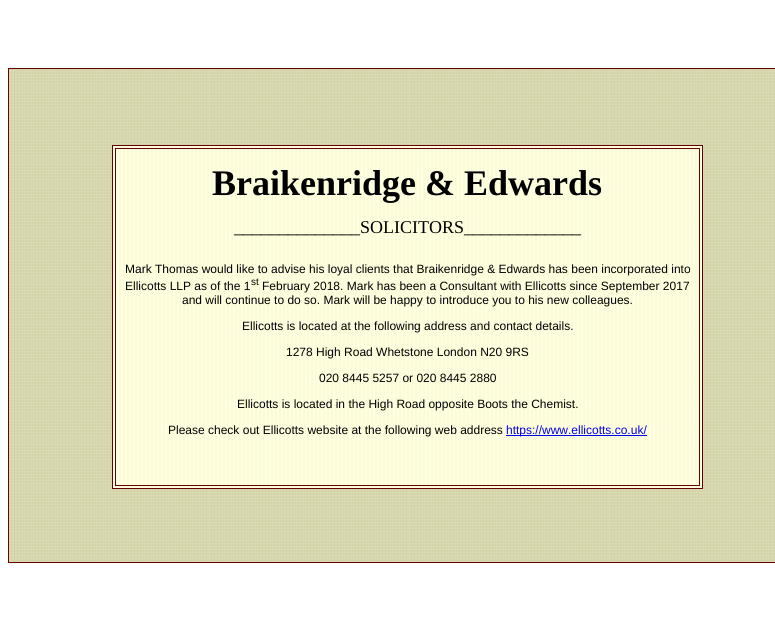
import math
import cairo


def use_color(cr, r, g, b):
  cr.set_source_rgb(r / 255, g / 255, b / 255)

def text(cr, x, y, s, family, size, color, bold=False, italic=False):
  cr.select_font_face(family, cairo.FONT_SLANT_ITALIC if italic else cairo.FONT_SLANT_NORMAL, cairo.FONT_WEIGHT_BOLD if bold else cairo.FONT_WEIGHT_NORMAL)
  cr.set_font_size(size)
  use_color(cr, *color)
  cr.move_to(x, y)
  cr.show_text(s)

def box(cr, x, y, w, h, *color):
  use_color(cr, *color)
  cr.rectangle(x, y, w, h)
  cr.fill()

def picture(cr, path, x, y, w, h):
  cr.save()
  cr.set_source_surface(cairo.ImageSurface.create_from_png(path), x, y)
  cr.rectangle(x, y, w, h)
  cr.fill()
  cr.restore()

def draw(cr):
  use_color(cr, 255, 255, 255)
  cr.paint()
  picture(cr, "img_01.png", 9, 69, 766, 493)
  cr.rectangle(8.5, 68.5, 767, 494)
  use_color(cr, 102, 0, 0)
  cr.set_line_width(1)
  cr.stroke()
  picture(cr, "img_02.png", 113, 146, 589, 342)
  cr.rectangle(112.5, 145.5, 590, 343)
  cr.stroke()
  cr.rectangle(115.5, 148.5, 584, 337)
  cr.stroke()
  box(cr, 506, 435, 141, 1, 0, 0, 238)
  text(cr, 212, 195, "Braikenridge & Edwards", "Liberation Serif", 36, (0, 0, 0), bold=True)
  text(cr, 234, 233, "______________SOLICITORS_____________", "Liberation Serif", 18, (0, 0, 0))
  text(cr, 125, 273, "Mark Thomas would like to advise his loyal clients that Braikenridge & Edwards has been incorporated into", "Liberation Sans", 12, (0, 0, 0))
  text(cr, 125, 290, "Ellicotts LLP as of the 1", "Liberation Sans", 12, (0, 0, 0))
  text(cr, 251, 285, "st", "Liberation Sans", 10, (0, 0, 0))
  text(cr, 262, 290, "February 2018. Mark has been a Consultant with Ellicotts since September 2017", "Liberation Sans", 12, (0, 0, 0))
  text(cr, 182, 304, "and will continue to do so. Mark will be happy to introduce you to his new colleagues.", "Liberation Sans", 12, (0, 0, 0))
  text(cr, 242, 330, "Ellicotts is located at the following address and contact details.", "Liberation Sans", 12, (0, 0, 0))
  text(cr, 286, 356, "1278 High Road Whetstone London N20 9RS", "Liberation Sans", 12, (0, 0, 0))
  text(cr, 319, 382, "020 8445 5257 or 020 8445 2880", "Liberation Sans", 12, (0, 0, 0))
  text(cr, 237, 408, "Ellicotts is located in the High Road opposite Boots the Chemist.", "Liberation Sans", 12, (0, 0, 0))
  text(cr, 168, 434, "Please check out Ellicotts website at the following web address", "Liberation Sans", 12, (0, 0, 0))
  text(cr, 506, 434, "https://www.ellicotts.co.uk/", "Liberation Sans", 12, (0, 0, 238))


surface = cairo.ImageSurface(cairo.FORMAT_RGB24, 775, 626)
cr = cairo.Context(surface)
options = cairo.FontOptions()
options.set_hint_metrics(cairo.HINT_METRICS_OFF)
options.set_hint_style(cairo.HINT_STYLE_NONE)
cr.set_font_options(options)
cr.set_miter_limit(4)
draw(cr)
surface.write_to_png("out.png")
